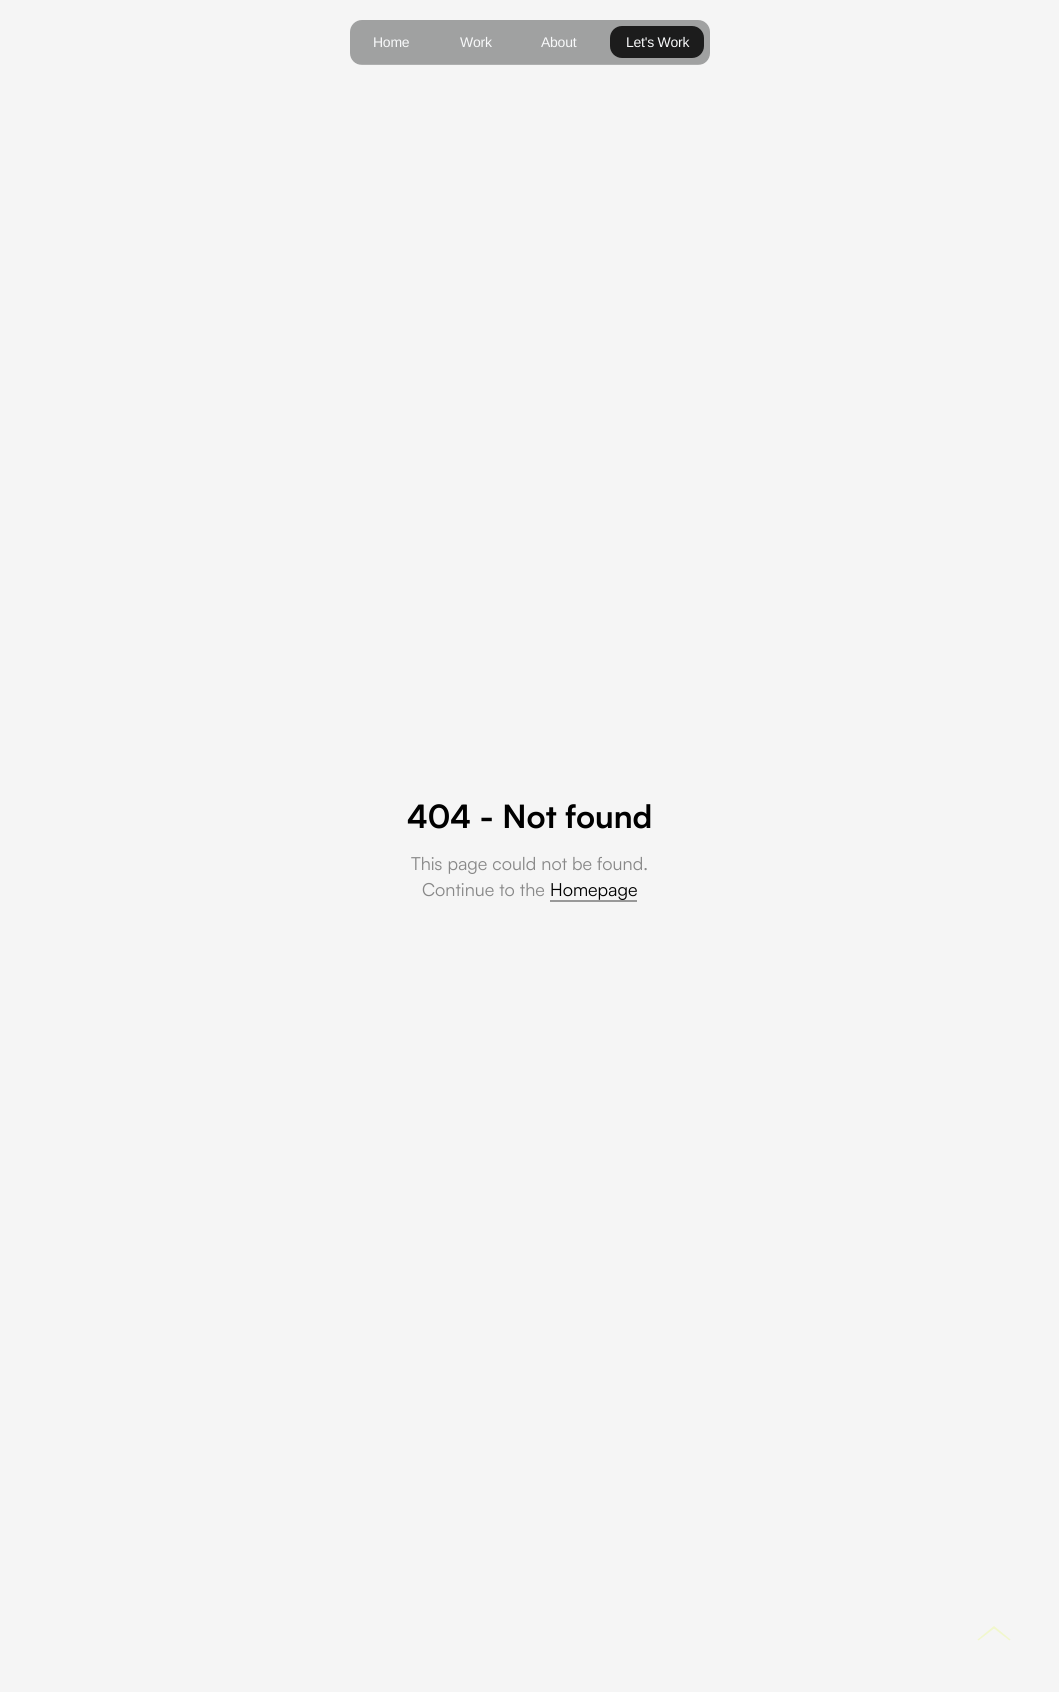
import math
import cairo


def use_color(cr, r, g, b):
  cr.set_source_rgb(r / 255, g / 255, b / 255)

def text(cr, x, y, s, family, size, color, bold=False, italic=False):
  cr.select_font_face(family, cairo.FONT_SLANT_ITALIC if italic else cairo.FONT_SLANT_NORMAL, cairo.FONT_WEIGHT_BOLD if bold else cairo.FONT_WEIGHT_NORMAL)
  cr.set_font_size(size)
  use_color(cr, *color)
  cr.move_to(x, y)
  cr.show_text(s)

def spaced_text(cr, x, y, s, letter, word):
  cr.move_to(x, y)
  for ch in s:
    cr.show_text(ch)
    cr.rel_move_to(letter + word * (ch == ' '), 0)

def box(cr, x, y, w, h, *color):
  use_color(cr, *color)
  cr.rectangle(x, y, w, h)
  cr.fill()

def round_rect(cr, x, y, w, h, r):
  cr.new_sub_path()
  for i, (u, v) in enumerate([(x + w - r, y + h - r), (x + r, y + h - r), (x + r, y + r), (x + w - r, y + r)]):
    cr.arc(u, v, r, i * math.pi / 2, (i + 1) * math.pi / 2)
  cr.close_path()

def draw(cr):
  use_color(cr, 245, 245, 245)
  cr.paint()
  use_color(cr, 160, 161, 161)
  round_rect(cr, 350, 20, 360, 45, 12)
  cr.fill()
  cr.set_source_rgba(1, 1, 1, 0.15)
  cr.rectangle(356, 64, 348, 1)
  cr.fill()
  use_color(cr, 28, 28, 28)
  round_rect(cr, 610, 26, 94, 32, 12)
  cr.fill()
  box(cr, 550, 900, 87, 2, 153, 153, 153)
  use_color(cr, 241, 247, 204)
  cr.new_path()
  cr.move_to(1010.5, 1639.5)
  cr.line_to(1009.5, 1640.5)
  cr.line_to(994, 1628.5)
  cr.line_to(978.5, 1640.5)
  cr.line_to(977.5, 1639.5)
  cr.line_to(994, 1626)
  cr.close_path()
  cr.fill()
  cr.select_font_face("Liberation Sans")
  cr.set_font_size(14)
  use_color(cr, 248, 249, 250)
  spaced_text(cr, 373, 47, "Home", -0.25, 0)
  spaced_text(cr, 460, 47, "Work", -0.25, 0)
  spaced_text(cr, 541, 47, "About", -0.25, 0)
  spaced_text(cr, 626, 47, "Let's Work", -0.25, 0)
  text(cr, 407, 828, "404 - Not found", "Satoshi", 32, (0, 0, 0), bold=True)
  text(cr, 411, 870, "This page could not be found.", "Satoshi", 18, (136, 136, 136))
  text(cr, 422, 896, "Continue to the", "Satoshi", 18, (136, 136, 136))
  text(cr, 550, 896, "Homepage", "Satoshi", 18, (0, 0, 0))


surface = cairo.ImageSurface(cairo.FORMAT_RGB24, 1059, 1692)
cr = cairo.Context(surface)
options = cairo.FontOptions()
options.set_hint_metrics(cairo.HINT_METRICS_OFF)
options.set_hint_style(cairo.HINT_STYLE_NONE)
cr.set_font_options(options)
cr.set_miter_limit(4)
draw(cr)
surface.write_to_png("out.png")
